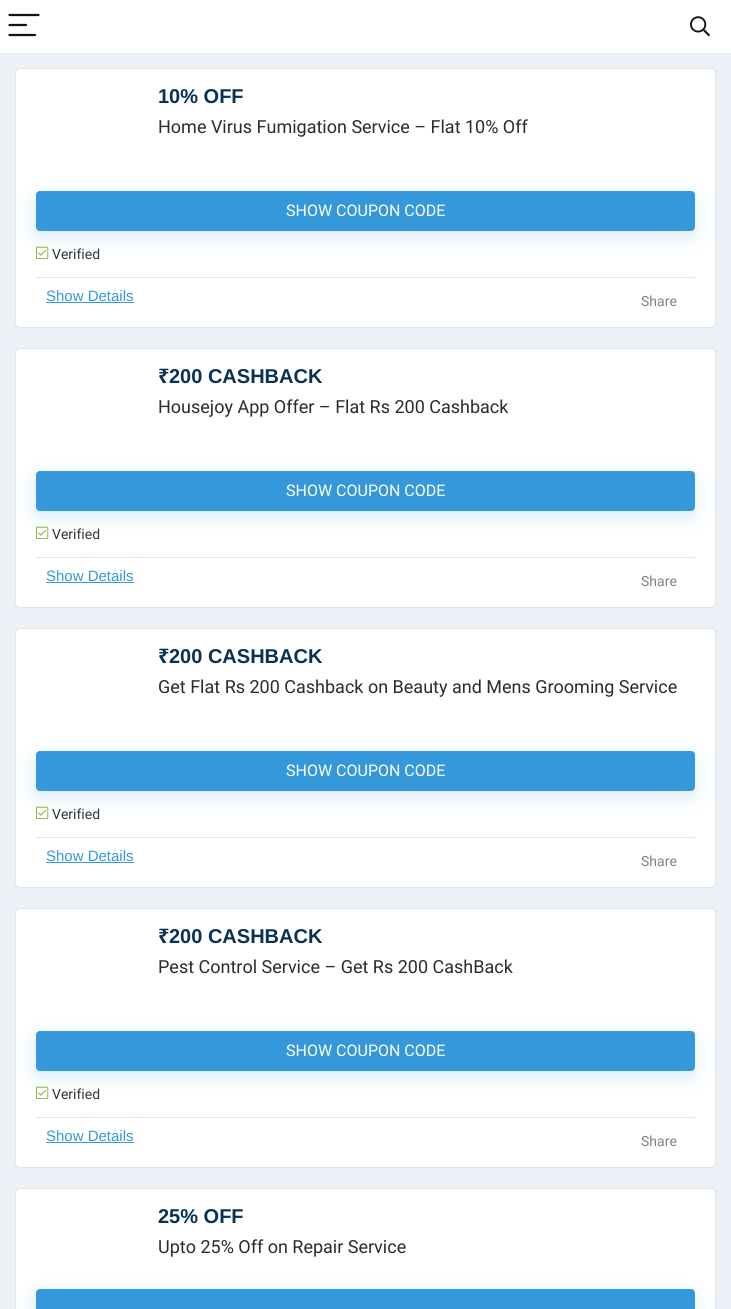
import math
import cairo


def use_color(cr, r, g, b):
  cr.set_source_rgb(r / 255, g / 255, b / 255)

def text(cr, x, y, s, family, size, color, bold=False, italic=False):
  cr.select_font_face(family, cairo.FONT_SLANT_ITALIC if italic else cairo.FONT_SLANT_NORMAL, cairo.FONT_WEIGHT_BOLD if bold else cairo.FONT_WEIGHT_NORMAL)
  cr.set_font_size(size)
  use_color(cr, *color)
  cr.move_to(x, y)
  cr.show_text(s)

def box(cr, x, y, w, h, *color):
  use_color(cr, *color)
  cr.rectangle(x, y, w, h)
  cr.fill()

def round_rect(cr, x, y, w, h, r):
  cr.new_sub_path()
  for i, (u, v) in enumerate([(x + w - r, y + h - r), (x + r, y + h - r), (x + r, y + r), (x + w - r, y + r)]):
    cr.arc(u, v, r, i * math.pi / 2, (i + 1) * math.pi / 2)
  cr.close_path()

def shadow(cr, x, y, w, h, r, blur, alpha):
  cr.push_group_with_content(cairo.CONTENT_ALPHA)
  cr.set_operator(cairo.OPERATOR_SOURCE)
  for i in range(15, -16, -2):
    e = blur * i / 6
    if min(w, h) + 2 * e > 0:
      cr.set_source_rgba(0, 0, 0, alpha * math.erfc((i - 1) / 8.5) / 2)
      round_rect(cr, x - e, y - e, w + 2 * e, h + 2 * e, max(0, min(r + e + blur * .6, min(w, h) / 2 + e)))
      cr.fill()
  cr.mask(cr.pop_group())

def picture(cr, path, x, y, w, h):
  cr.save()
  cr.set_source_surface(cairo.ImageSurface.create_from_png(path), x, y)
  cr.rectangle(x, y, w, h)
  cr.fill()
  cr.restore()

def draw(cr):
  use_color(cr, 236, 241, 247)
  cr.paint()
  box(cr, 0, 0, 731, 53, 255, 255, 255)
  box(cr, 0, 53, 731, 1, 238, 238, 238)
  cr.new_path()
  cr.move_to(9.5, 15)
  cr.line_to(38.5, 15)
  cr.move_to(9.5, 25)
  cr.line_to(26, 25)
  cr.move_to(9.5, 35)
  cr.line_to(35, 35)
  use_color(cr, 17, 17, 17)
  cr.set_line_width(2.2)
  cr.set_line_cap(cairo.LINE_CAP_ROUND)
  cr.stroke()
  picture(cr, "img_01.png", 690, 16, 20, 21)
  use_color(cr, 255, 255, 255)
  round_rect(cr, 15.5, 68.5, 700, 259, 4.5)
  cr.fill_preserve()
  use_color(cr, 227, 227, 227)
  cr.set_line_width(1)
  cr.set_line_cap(cairo.LINE_CAP_BUTT)
  cr.stroke()
  picture(cr, "img_02.png", 36, 246, 13, 13)
  use_color(cr, 52, 152, 219)
  shadow(cr, 35, 197, 659, 40, 4, 9.5, 0.2)
  use_color(cr, 52, 152, 219)
  round_rect(cr, 36, 191, 659, 40, 4)
  cr.fill()
  box(cr, 36, 277, 659, 1, 231, 231, 231)
  box(cr, 46, 302, 88, 1, 52, 152, 219)
  use_color(cr, 255, 255, 255)
  round_rect(cr, 15.5, 348.5, 700, 259, 4.5)
  cr.fill_preserve()
  use_color(cr, 227, 227, 227)
  cr.stroke()
  picture(cr, "img_02.png", 36, 526, 13, 13)
  use_color(cr, 52, 152, 219)
  shadow(cr, 35, 477, 659, 40, 4, 9.5, 0.2)
  use_color(cr, 52, 152, 219)
  round_rect(cr, 36, 471, 659, 40, 4)
  cr.fill()
  box(cr, 36, 557, 659, 1, 231, 231, 231)
  box(cr, 46, 582, 88, 1, 52, 152, 219)
  use_color(cr, 255, 255, 255)
  round_rect(cr, 15.5, 628.5, 700, 259, 4.5)
  cr.fill_preserve()
  use_color(cr, 227, 227, 227)
  cr.stroke()
  picture(cr, "img_02.png", 36, 806, 13, 13)
  use_color(cr, 52, 152, 219)
  shadow(cr, 35, 757, 659, 40, 4, 9.5, 0.2)
  use_color(cr, 52, 152, 219)
  round_rect(cr, 36, 751, 659, 40, 4)
  cr.fill()
  box(cr, 36, 837, 659, 1, 231, 231, 231)
  box(cr, 46, 862, 88, 1, 52, 152, 219)
  use_color(cr, 255, 255, 255)
  round_rect(cr, 15.5, 908.5, 700, 259, 4.5)
  cr.fill_preserve()
  use_color(cr, 227, 227, 227)
  cr.stroke()
  picture(cr, "img_02.png", 36, 1086, 13, 13)
  use_color(cr, 52, 152, 219)
  shadow(cr, 35, 1037, 659, 40, 4, 9.5, 0.2)
  use_color(cr, 52, 152, 219)
  round_rect(cr, 36, 1031, 659, 40, 4)
  cr.fill()
  box(cr, 36, 1117, 659, 1, 231, 231, 231)
  box(cr, 46, 1142, 88, 1, 52, 152, 219)
  use_color(cr, 255, 255, 255)
  round_rect(cr, 15.5, 1188.5, 700, 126, 4.5)
  cr.fill_preserve()
  use_color(cr, 227, 227, 227)
  cr.stroke()
  use_color(cr, 52, 152, 219)
  shadow(cr, 35, 1295, 659, 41, 4, 9.5, 0.2)
  use_color(cr, 52, 152, 219)
  round_rect(cr, 36, 1289, 659, 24, 4)
  cr.fill()
  text(cr, 158, 103, "10% OFF", "Liberation Sans", 20, (10, 49, 81), bold=True)
  text(cr, 158, 133, "Home Virus Fumigation Service – Flat 10% Off", "Roboto", 18, (43, 43, 43))
  text(cr, 286, 216, "SHOW COUPON CODE", "Roboto", 16, (255, 255, 255))
  text(cr, 52, 259, "Verified", "Roboto", 14, (51, 51, 51))
  text(cr, 46, 301, "Show Details", "Liberation Sans", 15, (52, 152, 219))
  text(cr, 641, 306, "Share", "Roboto", 14, (128, 128, 128))
  text(cr, 158, 383, "₹", "Noto Sans", 20, (10, 49, 81), bold=True)
  text(cr, 169, 383, "200 CASHBACK", "Liberation Sans", 20, (10, 49, 81), bold=True)
  text(cr, 158, 413, "Housejoy App Offer – Flat Rs 200 Cashback", "Roboto", 18, (43, 43, 43))
  text(cr, 286, 496, "SHOW COUPON CODE", "Roboto", 16, (255, 255, 255))
  text(cr, 52, 539, "Verified", "Roboto", 14, (51, 51, 51))
  text(cr, 46, 581, "Show Details", "Liberation Sans", 15, (52, 152, 219))
  text(cr, 641, 586, "Share", "Roboto", 14, (128, 128, 128))
  text(cr, 158, 663, "₹", "Noto Sans", 20, (10, 49, 81), bold=True)
  text(cr, 169, 663, "200 CASHBACK", "Liberation Sans", 20, (10, 49, 81), bold=True)
  text(cr, 158, 693, "Get Flat Rs 200 Cashback on Beauty and Mens Grooming Service", "Roboto", 18, (43, 43, 43))
  text(cr, 286, 776, "SHOW COUPON CODE", "Roboto", 16, (255, 255, 255))
  text(cr, 52, 819, "Verified", "Roboto", 14, (51, 51, 51))
  text(cr, 46, 861, "Show Details", "Liberation Sans", 15, (52, 152, 219))
  text(cr, 641, 866, "Share", "Roboto", 14, (128, 128, 128))
  text(cr, 158, 943, "₹", "Noto Sans", 20, (10, 49, 81), bold=True)
  text(cr, 169, 943, "200 CASHBACK", "Liberation Sans", 20, (10, 49, 81), bold=True)
  text(cr, 158, 973, "Pest Control Service – Get Rs 200 CashBack", "Roboto", 18, (43, 43, 43))
  text(cr, 286, 1056, "SHOW COUPON CODE", "Roboto", 16, (255, 255, 255))
  text(cr, 52, 1099, "Verified", "Roboto", 14, (51, 51, 51))
  text(cr, 46, 1141, "Show Details", "Liberation Sans", 15, (52, 152, 219))
  text(cr, 641, 1146, "Share", "Roboto", 14, (128, 128, 128))
  text(cr, 158, 1223, "25% OFF", "Liberation Sans", 20, (10, 49, 81), bold=True)
  text(cr, 158, 1253, "Upto 25% Off on Repair Service", "Roboto", 18, (43, 43, 43))


surface = cairo.ImageSurface(cairo.FORMAT_RGB24, 731, 1309)
cr = cairo.Context(surface)
options = cairo.FontOptions()
options.set_hint_metrics(cairo.HINT_METRICS_OFF)
options.set_hint_style(cairo.HINT_STYLE_NONE)
cr.set_font_options(options)
cr.set_miter_limit(4)
draw(cr)
surface.write_to_png("out.png")
